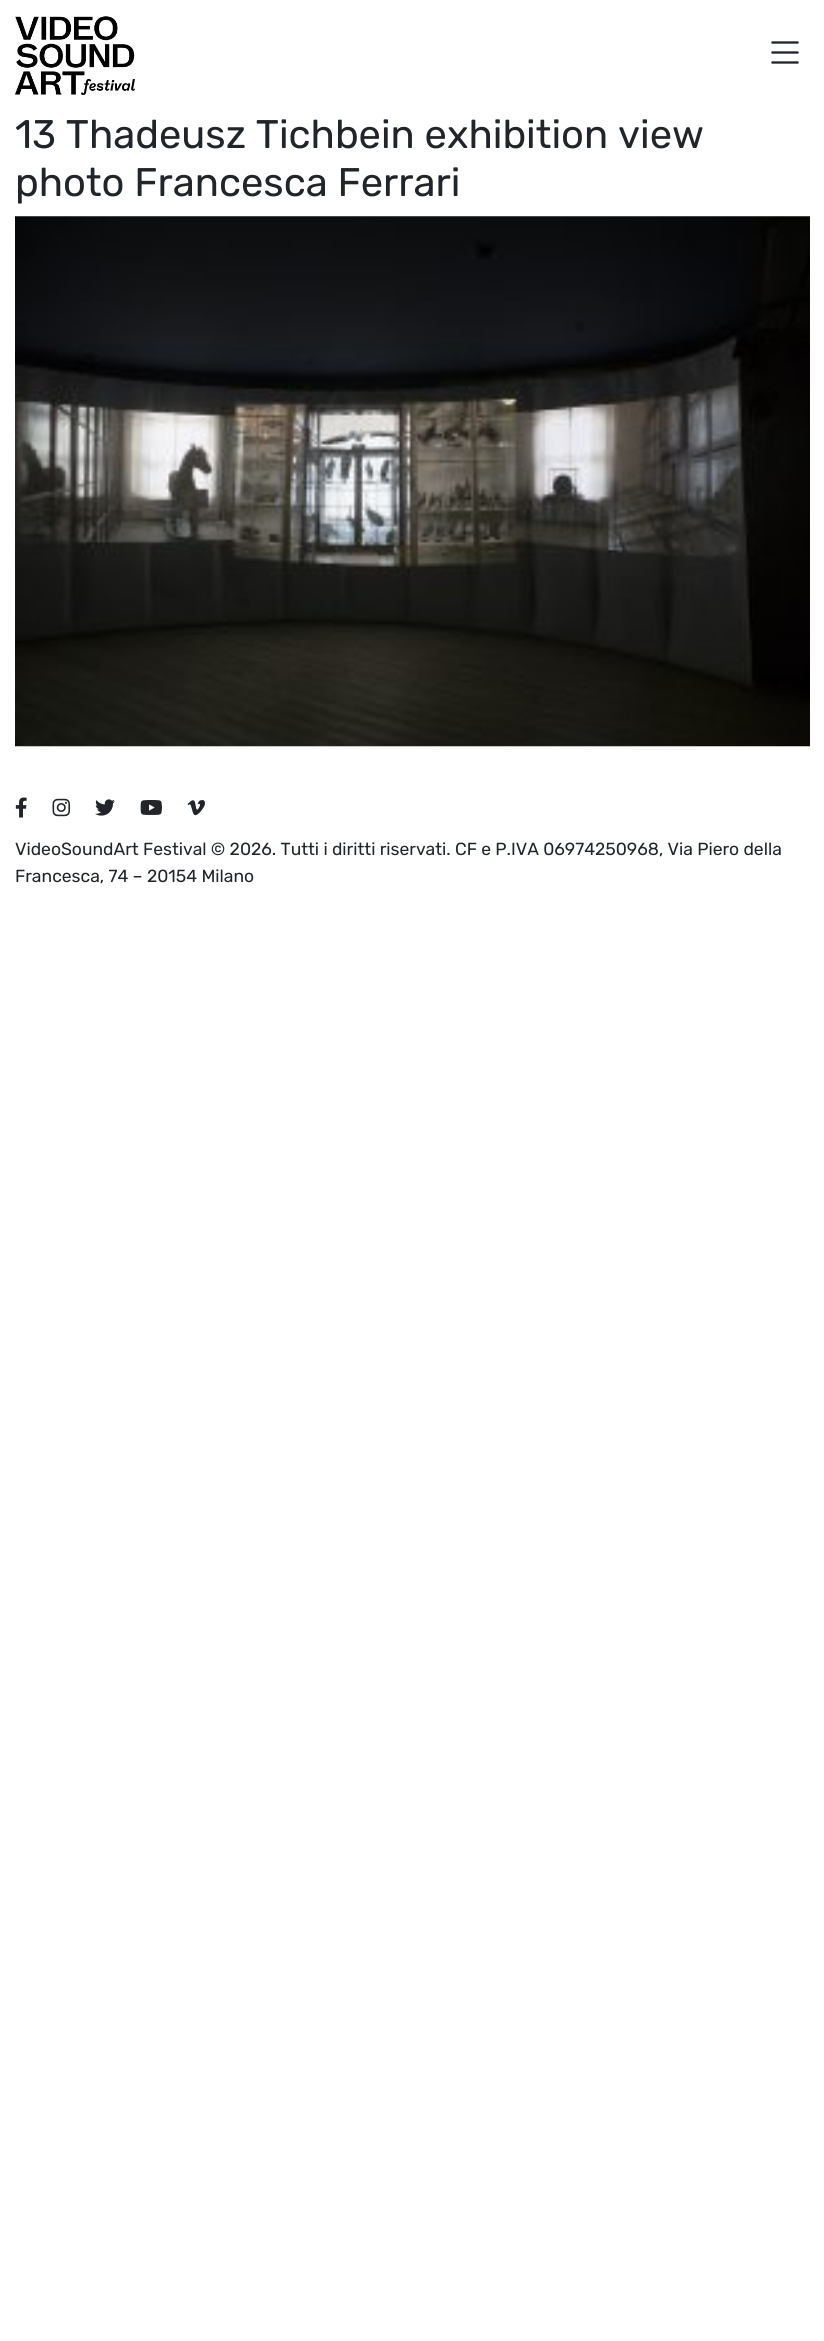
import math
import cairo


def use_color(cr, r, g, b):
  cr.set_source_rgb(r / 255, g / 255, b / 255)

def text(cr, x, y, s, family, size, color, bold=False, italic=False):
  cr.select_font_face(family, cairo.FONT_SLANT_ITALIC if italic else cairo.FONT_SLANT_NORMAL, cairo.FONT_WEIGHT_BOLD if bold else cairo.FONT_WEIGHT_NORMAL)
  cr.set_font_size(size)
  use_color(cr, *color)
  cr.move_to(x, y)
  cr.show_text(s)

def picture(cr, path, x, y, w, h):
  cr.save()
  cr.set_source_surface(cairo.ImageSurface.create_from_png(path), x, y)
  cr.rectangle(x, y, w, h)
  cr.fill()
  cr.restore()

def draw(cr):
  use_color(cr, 255, 255, 255)
  cr.paint()
  picture(cr, "img_01.png", 15, 16, 120, 79)
  picture(cr, "img_02.png", 771, 41, 28, 23)
  picture(cr, "img_03.png", 15, 216, 795, 531)
  picture(cr, "img_04.png", 15, 797, 12, 21)
  picture(cr, "img_05.png", 52, 798, 19, 19)
  picture(cr, "img_06.png", 95, 799, 20, 17)
  picture(cr, "img_07.png", 140, 800, 22, 15)
  picture(cr, "img_08.png", 187, 800, 18, 16)
  text(cr, 15, 148, "13 Thadeusz Tichbein exhibition view", "Rubik", 39.9, (33, 37, 41))
  text(cr, 15, 196, "photo Francesca Ferrari", "Rubik", 39.9, (33, 37, 41))
  text(cr, 15, 855, "VideoSoundArt Festival © 2026. Tutti i diritti riservati. CF e P.IVA 06974250968, Via Piero della", "Rubik", 17.5, (33, 37, 41))
  text(cr, 15, 882, "Francesca, 74 – 20154 Milano", "Rubik", 17.5, (33, 37, 41))


surface = cairo.ImageSurface(cairo.FORMAT_RGB24, 824, 2341)
cr = cairo.Context(surface)
options = cairo.FontOptions()
options.set_hint_metrics(cairo.HINT_METRICS_OFF)
options.set_hint_style(cairo.HINT_STYLE_NONE)
cr.set_font_options(options)
cr.set_miter_limit(4)
draw(cr)
surface.write_to_png("out.png")
